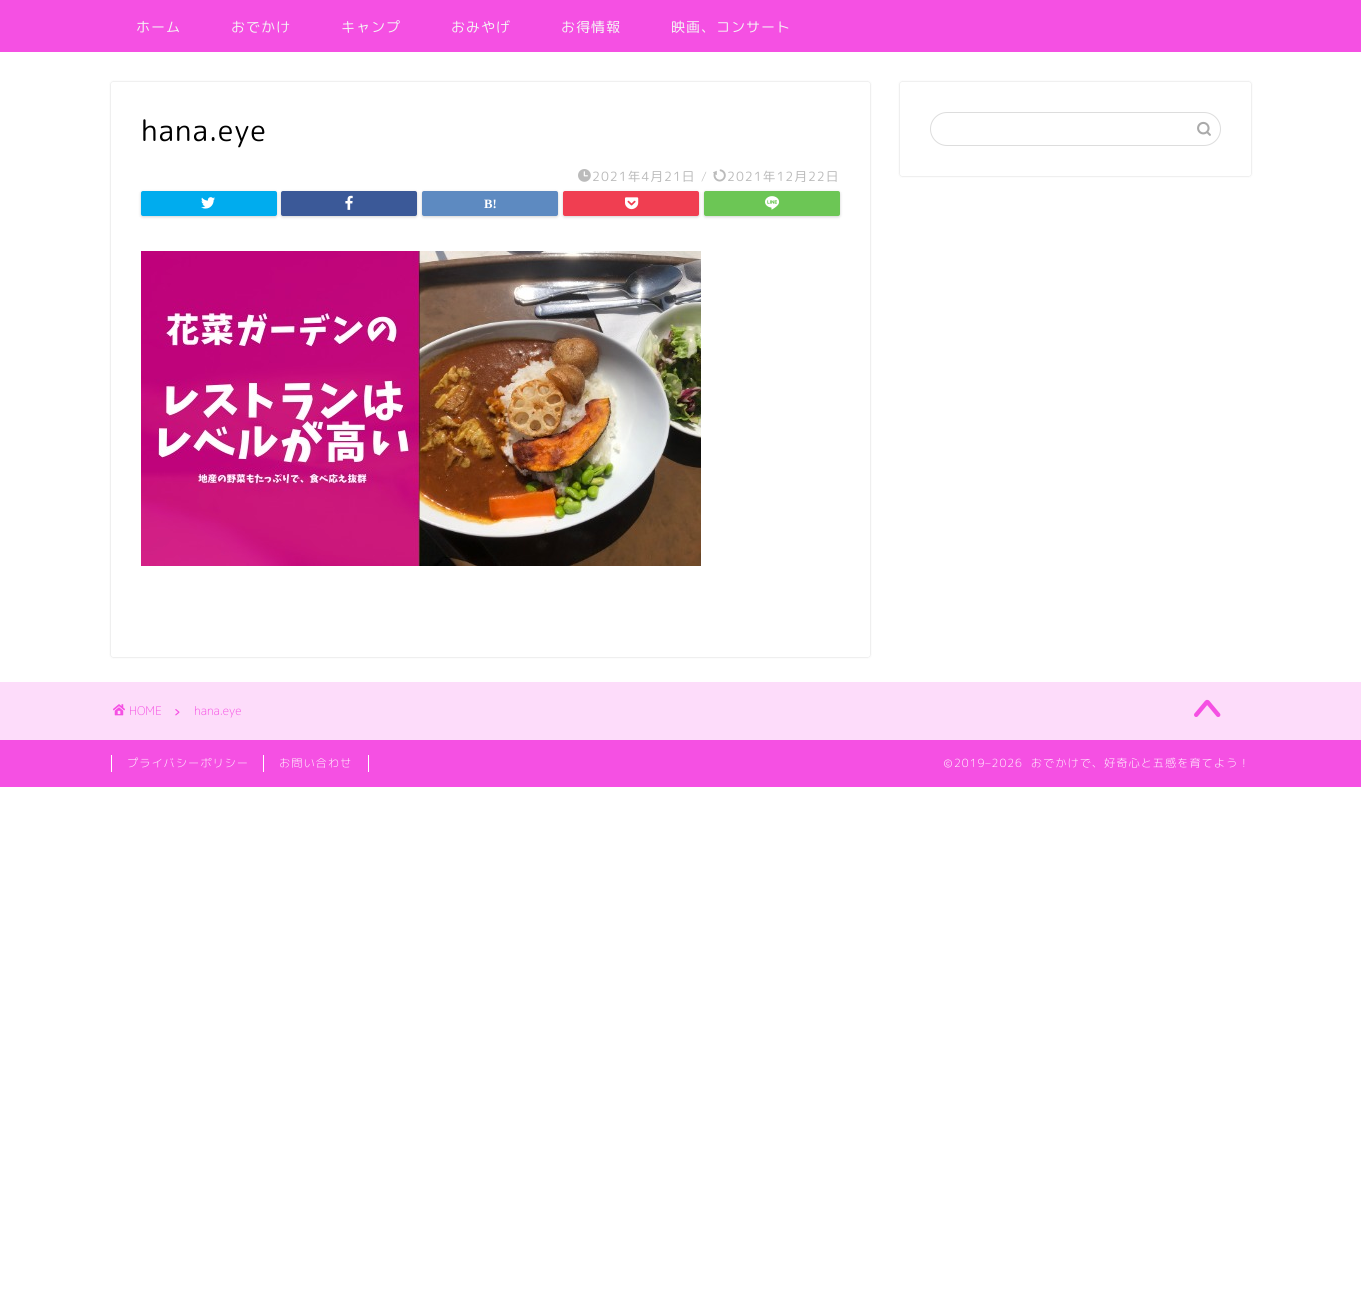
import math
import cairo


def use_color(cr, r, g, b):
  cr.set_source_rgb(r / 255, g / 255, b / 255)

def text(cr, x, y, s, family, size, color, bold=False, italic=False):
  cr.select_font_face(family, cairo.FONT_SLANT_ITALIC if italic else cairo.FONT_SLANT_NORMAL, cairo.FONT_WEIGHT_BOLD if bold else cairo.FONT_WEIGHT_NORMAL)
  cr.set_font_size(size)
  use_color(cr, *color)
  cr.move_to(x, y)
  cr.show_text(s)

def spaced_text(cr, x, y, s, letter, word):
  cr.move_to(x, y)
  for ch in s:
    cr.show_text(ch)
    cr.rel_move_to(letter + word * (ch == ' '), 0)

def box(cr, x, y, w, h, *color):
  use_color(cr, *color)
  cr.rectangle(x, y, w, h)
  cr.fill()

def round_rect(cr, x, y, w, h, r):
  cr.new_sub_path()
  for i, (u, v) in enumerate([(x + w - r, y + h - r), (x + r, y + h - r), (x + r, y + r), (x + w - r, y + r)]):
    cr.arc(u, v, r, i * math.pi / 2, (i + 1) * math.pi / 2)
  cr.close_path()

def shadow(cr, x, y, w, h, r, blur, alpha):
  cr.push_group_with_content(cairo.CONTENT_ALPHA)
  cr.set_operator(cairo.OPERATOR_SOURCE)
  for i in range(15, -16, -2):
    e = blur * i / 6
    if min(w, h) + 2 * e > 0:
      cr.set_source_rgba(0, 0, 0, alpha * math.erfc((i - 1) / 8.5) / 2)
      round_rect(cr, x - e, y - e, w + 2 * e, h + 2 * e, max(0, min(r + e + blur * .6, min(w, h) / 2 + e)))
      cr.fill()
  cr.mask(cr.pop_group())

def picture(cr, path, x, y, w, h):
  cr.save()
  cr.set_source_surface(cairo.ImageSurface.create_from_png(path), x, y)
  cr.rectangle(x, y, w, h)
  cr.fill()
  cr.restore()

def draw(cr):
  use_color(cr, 255, 255, 255)
  cr.paint()
  box(cr, 0, 0, 1361, 52, 245, 80, 227)
  use_color(cr, 0, 0, 0)
  shadow(cr, 111, 82, 759, 575, 2, 1, 0.18)
  use_color(cr, 255, 255, 255)
  round_rect(cr, 111, 82, 759, 575, 2)
  cr.fill()
  picture(cr, "img_01.png", 578, 169, 13, 13)
  picture(cr, "img_02.png", 713, 169, 13, 13)
  use_color(cr, 0, 0, 0)
  shadow(cr, 141, 192, 136, 25, 2, 1.5, 0.18)
  use_color(cr, 0, 172, 238)
  round_rect(cr, 142, 192, 134, 23, 1)
  cr.fill_preserve()
  cr.stroke()
  picture(cr, "img_03.png", 201, 197, 14, 12)
  use_color(cr, 0, 0, 0)
  shadow(cr, 281, 192, 136, 25, 2, 1.5, 0.18)
  use_color(cr, 59, 89, 152)
  round_rect(cr, 282, 192, 134, 23, 1)
  cr.fill_preserve()
  cr.stroke()
  picture(cr, "img_04.png", 345, 195, 8, 15)
  use_color(cr, 0, 0, 0)
  shadow(cr, 422, 192, 136, 25, 2, 1.5, 0.18)
  use_color(cr, 93, 138, 193)
  round_rect(cr, 423, 192, 134, 23, 1)
  cr.fill_preserve()
  cr.stroke()
  use_color(cr, 0, 0, 0)
  shadow(cr, 563, 192, 136, 25, 2, 1.5, 0.18)
  use_color(cr, 240, 62, 81)
  round_rect(cr, 564, 192, 134, 23, 1)
  cr.fill_preserve()
  cr.stroke()
  picture(cr, "img_05.png", 625, 197, 14, 13)
  use_color(cr, 0, 0, 0)
  shadow(cr, 704, 192, 136, 25, 2, 1.5, 0.18)
  use_color(cr, 108, 198, 85)
  round_rect(cr, 705, 192, 134, 23, 1)
  cr.fill_preserve()
  cr.stroke()
  picture(cr, "img_06.png", 765, 196, 15, 14)
  picture(cr, "img_07.png", 141, 251, 560, 315)
  use_color(cr, 0, 0, 0)
  shadow(cr, 900, 82, 351, 94, 2, 1, 0.18)
  use_color(cr, 255, 255, 255)
  round_rect(cr, 900, 82, 351, 94, 2)
  cr.fill()
  round_rect(cr, 930.5, 112.5, 290, 33, 16.5)
  use_color(cr, 221, 221, 221)
  cr.set_line_width(1)
  cr.stroke()
  picture(cr, "img_08.png", 1197, 121, 14, 15)
  box(cr, 0, 682, 1361, 58, 253, 220, 250)
  picture(cr, "img_09.png", 113, 704, 12, 12)
  picture(cr, "img_10.png", 175, 709, 5, 7)
  picture(cr, "img_11.png", 1194, 699, 27, 18)
  box(cr, 0, 740, 1361, 47, 245, 80, 227)
  box(cr, 263, 755, 1, 17, 255, 255, 255)
  box(cr, 111, 755, 1, 17, 255, 255, 255)
  box(cr, 368, 755, 1, 17, 255, 255, 255)
  picture(cr, "img_12.png", 944, 759, 8, 9)
  cr.select_font_face("Rounded Mplus 1c")
  cr.set_font_size(14)
  use_color(cr, 244, 244, 244)
  spaced_text(cr, 136, 32, "ホーム", 1, 0)
  spaced_text(cr, 231, 32, "おでかけ", 1, 0)
  spaced_text(cr, 341, 32, "キャンプ", 1, 0)
  spaced_text(cr, 451, 32, "おみやげ", 1, 0)
  spaced_text(cr, 561, 32, "お得情報", 1, 0)
  spaced_text(cr, 671, 32, "映画、コンサート", 1, 0)
  cr.set_font_size(29)
  use_color(cr, 0, 0, 0)
  spaced_text(cr, 141, 141, "hana.eye", 1, 0)
  cr.set_font_size(12.75)
  use_color(cr, 187, 187, 187)
  spaced_text(cr, 592, 181, "2021年4月21日", 1, 0)
  cr.select_font_face("Rounded Mplus 1c Light")
  spaced_text(cr, 701, 181, "/", 1, 0)
  cr.select_font_face("Rounded Mplus 1c")
  spaced_text(cr, 727, 181, "2021年12月22日", 1, 0)
  text(cr, 484, 208, "B!", "Liberation Serif", 12.75, (255, 255, 255), bold=True)
  text(cr, 129, 715, "HOME", "Rounded Mplus 1c Light", 12, (245, 80, 227))
  text(cr, 194, 715, "hana.eye", "Rounded Mplus 1c Light", 12, (245, 80, 227))
  cr.set_font_size(11.2)
  use_color(cr, 255, 255, 255)
  spaced_text(cr, 127, 767, "プライバシーポリシー", 1, 0)
  spaced_text(cr, 279, 767, "お問い合わせ", 1, 0)
  spaced_text(cr, 954, 767, "2019–2026  おでかけで、好奇心と五感を育てよう！", 1, 0)


surface = cairo.ImageSurface(cairo.FORMAT_RGB24, 1361, 1297)
cr = cairo.Context(surface)
options = cairo.FontOptions()
options.set_hint_metrics(cairo.HINT_METRICS_OFF)
options.set_hint_style(cairo.HINT_STYLE_NONE)
cr.set_font_options(options)
cr.set_miter_limit(4)
draw(cr)
surface.write_to_png("out.png")
